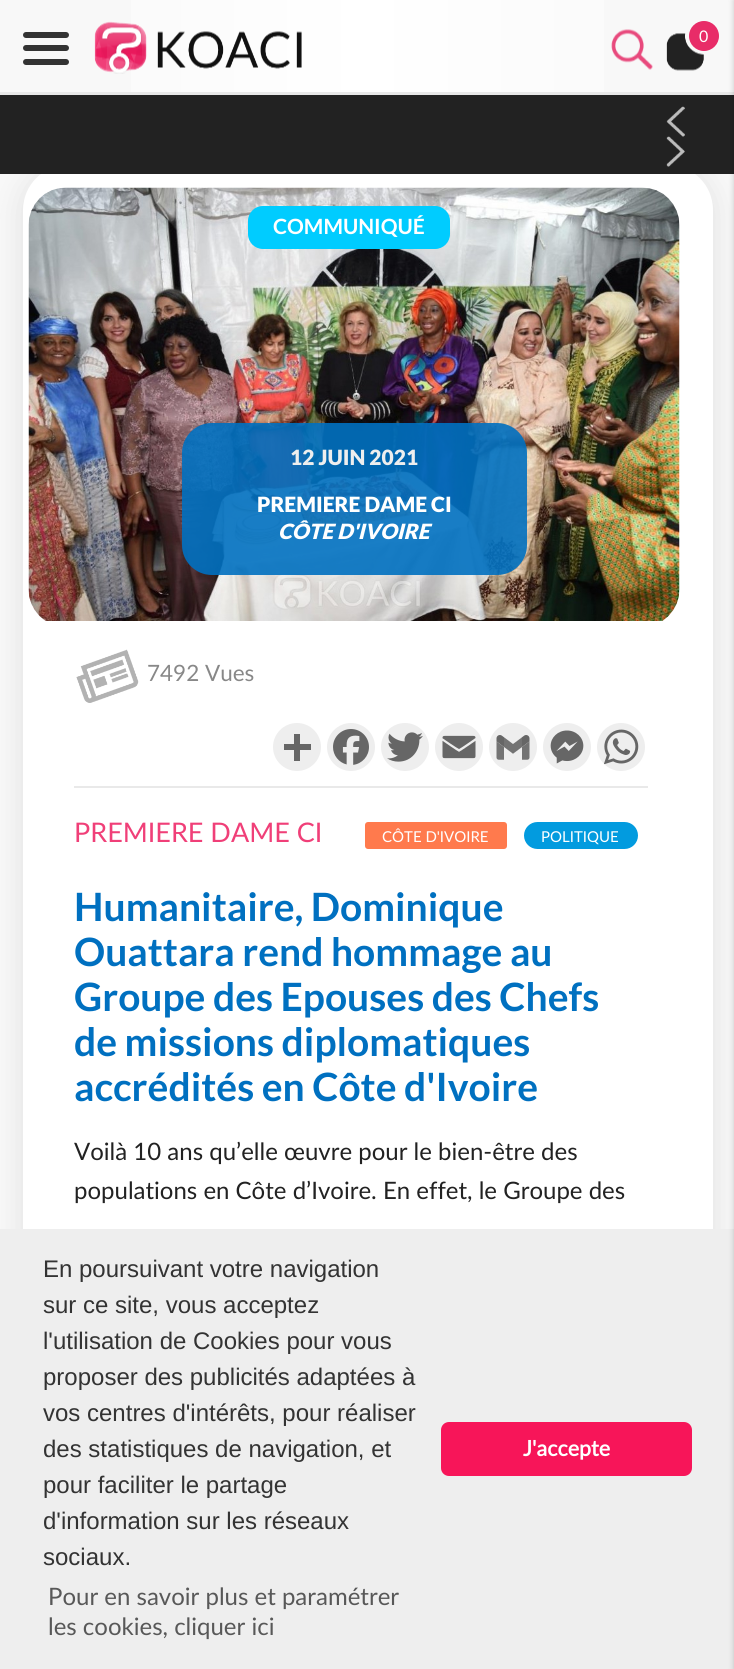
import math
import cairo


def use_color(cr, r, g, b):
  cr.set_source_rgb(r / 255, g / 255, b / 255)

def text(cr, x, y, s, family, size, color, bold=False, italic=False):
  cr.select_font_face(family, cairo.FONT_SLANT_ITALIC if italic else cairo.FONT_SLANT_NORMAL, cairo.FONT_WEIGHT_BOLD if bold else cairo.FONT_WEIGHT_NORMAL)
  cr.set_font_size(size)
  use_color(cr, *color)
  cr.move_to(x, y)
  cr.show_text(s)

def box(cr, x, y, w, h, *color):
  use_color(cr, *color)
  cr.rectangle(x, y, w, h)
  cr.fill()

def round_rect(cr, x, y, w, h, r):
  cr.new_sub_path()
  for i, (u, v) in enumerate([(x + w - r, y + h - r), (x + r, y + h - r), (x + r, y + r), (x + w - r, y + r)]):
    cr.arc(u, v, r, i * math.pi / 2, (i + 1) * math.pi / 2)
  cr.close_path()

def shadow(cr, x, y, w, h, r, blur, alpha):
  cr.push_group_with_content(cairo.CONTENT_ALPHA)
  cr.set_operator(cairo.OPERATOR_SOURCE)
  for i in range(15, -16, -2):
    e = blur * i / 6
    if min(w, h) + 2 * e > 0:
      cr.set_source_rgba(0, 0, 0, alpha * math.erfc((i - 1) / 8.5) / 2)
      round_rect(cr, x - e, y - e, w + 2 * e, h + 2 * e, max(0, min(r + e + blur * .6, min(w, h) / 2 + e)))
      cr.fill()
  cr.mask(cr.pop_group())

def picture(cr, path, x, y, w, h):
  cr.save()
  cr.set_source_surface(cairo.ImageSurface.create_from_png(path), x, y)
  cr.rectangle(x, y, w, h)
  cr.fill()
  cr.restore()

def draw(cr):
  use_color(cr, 248, 248, 248)
  cr.paint()
  gradient = cairo.LinearGradient(0, 46, 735, 46)
  gradient.add_color_stop_rgba(0, 0.973, 0.973, 0.973, 1)
  gradient.add_color_stop_rgba(0.5, 1, 1, 1, 1)
  gradient.add_color_stop_rgba(1, 0.973, 0.973, 0.973, 1)
  cr.set_source(gradient)
  cr.rectangle(131, 0, 473, 92)
  cr.fill()
  box(cr, 0, 92, 734, 3, 232, 232, 232)
  use_color(cr, 51, 51, 51)
  round_rect(cr, 23, 32, 46, 6, 3)
  cr.fill()
  round_rect(cr, 23, 45, 46, 6, 3)
  cr.fill()
  round_rect(cr, 23, 59, 46, 6, 3)
  cr.fill()
  picture(cr, "img_01.png", 94, 21, 208, 53)
  picture(cr, "img_02.png", 611, 29, 42, 41)
  picture(cr, "img_03.png", 666, 33, 38, 38)
  use_color(cr, 232, 44, 104)
  cr.arc(704, 36, 15, 0, 2 * math.pi)
  cr.fill()
  use_color(cr, 0, 0, 0)
  shadow(cr, 23, 165, 690, 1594, 45, 15, 0.1)
  use_color(cr, 255, 255, 255)
  round_rect(cr, 23, 165, 690, 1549, 45)
  cr.fill()
  box(cr, 0, 95, 734, 79, 34, 34, 34)
  picture(cr, "img_04.png", 666, 106, 19, 31)
  picture(cr, "img_05.png", 666, 136, 19, 31)
  box(cr, 0, 1229, 734, 440, 238, 238, 238)
  use_color(cr, 0, 0, 0)
  shadow(cr, 734, 0, 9, 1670, 0, 3, 0.2)
  picture(cr, "img_06.png", 28, 187, 652, 434)
  use_color(cr, 0, 204, 255)
  round_rect(cr, 248, 206, 202, 43, 15)
  cr.fill()
  cr.set_source_rgba(0, 0.439, 0.753, 0.9)
  round_rect(cr, 182, 423, 345, 152, 30)
  cr.fill()
  picture(cr, "img_07.png", 76, 649, 63, 54)
  use_color(cr, 238, 238, 238)
  cr.arc(297, 747, 24, 0, 2 * math.pi)
  cr.fill()
  box(cr, 294, 734, 6, 27, 102, 102, 102)
  box(cr, 284, 744, 27, 6, 102, 102, 102)
  use_color(cr, 238, 238, 238)
  cr.arc(351, 747, 24, 0, 2 * math.pi)
  cr.fill()
  picture(cr, "img_08.png", 333, 729, 36, 36)
  cr.arc(405, 747, 24, 0, 2 * math.pi)
  cr.fill()
  picture(cr, "img_09.png", 387, 732, 36, 30)
  cr.arc(459, 747, 24, 0, 2 * math.pi)
  cr.fill()
  picture(cr, "img_10.png", 442, 735, 34, 24)
  cr.arc(513, 747, 24, 0, 2 * math.pi)
  cr.fill()
  picture(cr, "img_11.png", 496, 735, 34, 25)
  cr.arc(567, 747, 24, 0, 2 * math.pi)
  cr.fill()
  picture(cr, "img_12.png", 550, 730, 34, 34)
  cr.arc(621, 747, 24, 0, 2 * math.pi)
  cr.fill()
  picture(cr, "img_13.png", 604, 729, 35, 36)
  box(cr, 74, 786, 574, 2, 233, 233, 233)
  use_color(cr, 255, 122, 77)
  round_rect(cr, 365, 822, 142, 27, 3)
  cr.fill()
  use_color(cr, 2, 155, 223)
  round_rect(cr, 524, 822, 114, 27, 13.5)
  cr.fill()
  use_color(cr, 247, 21, 89)
  round_rect(cr, 441, 1422, 251, 54, 8)
  cr.fill()
  text(cr, 699, 42, "0", "Lato", 16, (255, 255, 255))
  text(cr, 273, 234, "COMMUNIQUÉ", "Lato", 21, (255, 255, 255), bold=True)
  text(cr, 290, 465, "12 JUIN 2021", "Lato Black", 21, (238, 238, 238))
  text(cr, 257, 512, "PREMIERE DAME CI", "Lato Black", 21, (255, 255, 255))
  text(cr, 278, 539, "CÔTE D'IVOIRE", "Lato Black", 21, (255, 255, 255), italic=True)
  text(cr, 147, 681, "7492 Vues", "Lato", 22.5, (136, 136, 136))
  text(cr, 74, 842, "PREMIERE DAME CI", "Lato", 27, (240, 63, 120))
  text(cr, 382, 842, "CÔTE D'IVOIRE", "Lato", 15, (255, 255, 255))
  text(cr, 541, 842, "POLITIQUE", "Lato", 15, (255, 255, 255))
  text(cr, 74, 921, "Humanitaire, Dominique", "Lato", 39, (0, 112, 192), bold=True)
  text(cr, 74, 966, "Ouattara rend hommage au", "Lato", 39, (0, 112, 192), bold=True)
  text(cr, 74, 1011, "Groupe des Epouses des Chefs", "Lato", 39, (0, 112, 192), bold=True)
  text(cr, 74, 1056, "de missions diplomatiques", "Lato", 39, (0, 112, 192), bold=True)
  text(cr, 74, 1101, "accrédités en Côte d'Ivoire", "Lato", 39, (0, 112, 192), bold=True)
  text(cr, 74, 1160, "Voilà 10 ans qu’elle œuvre pour le bien-être des", "Lato", 24, (34, 34, 34))
  text(cr, 74, 1199, "populations en Côte d’Ivoire. En effet, le Groupe des", "Lato", 24, (34, 34, 34))
  text(cr, 43, 1277, "En poursuivant votre navigation", "Liberation Sans", 24, (51, 51, 51))
  text(cr, 43, 1313, "sur ce site, vous acceptez", "Liberation Sans", 24, (51, 51, 51))
  text(cr, 43, 1349, "l'utilisation de Cookies pour vous", "Liberation Sans", 24, (51, 51, 51))
  text(cr, 43, 1385, "proposer des publicités adaptées à", "Liberation Sans", 24, (51, 51, 51))
  text(cr, 43, 1421, "vos centres d'intérêts, pour réaliser", "Liberation Sans", 24, (51, 51, 51))
  text(cr, 43, 1457, "des statistiques de navigation, et", "Liberation Sans", 24, (51, 51, 51))
  text(cr, 43, 1493, "pour faciliter le partage", "Liberation Sans", 24, (51, 51, 51))
  text(cr, 43, 1529, "d'information sur les réseaux", "Liberation Sans", 24, (51, 51, 51))
  text(cr, 43, 1565, "sociaux.", "Liberation Sans", 24, (51, 51, 51))
  text(cr, 48, 1605, "Pour en savoir plus et paramétrer", "Lato", 24, (88, 88, 88))
  text(cr, 48, 1635, "les cookies, cliquer ici", "Lato", 24, (88, 88, 88))
  text(cr, 523, 1456, "J'accepte", "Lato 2", 21.5, (255, 255, 255), bold=True)


surface = cairo.ImageSurface(cairo.FORMAT_RGB24, 734, 1669)
cr = cairo.Context(surface)
options = cairo.FontOptions()
options.set_hint_metrics(cairo.HINT_METRICS_OFF)
options.set_hint_style(cairo.HINT_STYLE_NONE)
cr.set_font_options(options)
cr.set_miter_limit(4)
draw(cr)
surface.write_to_png("out.png")
